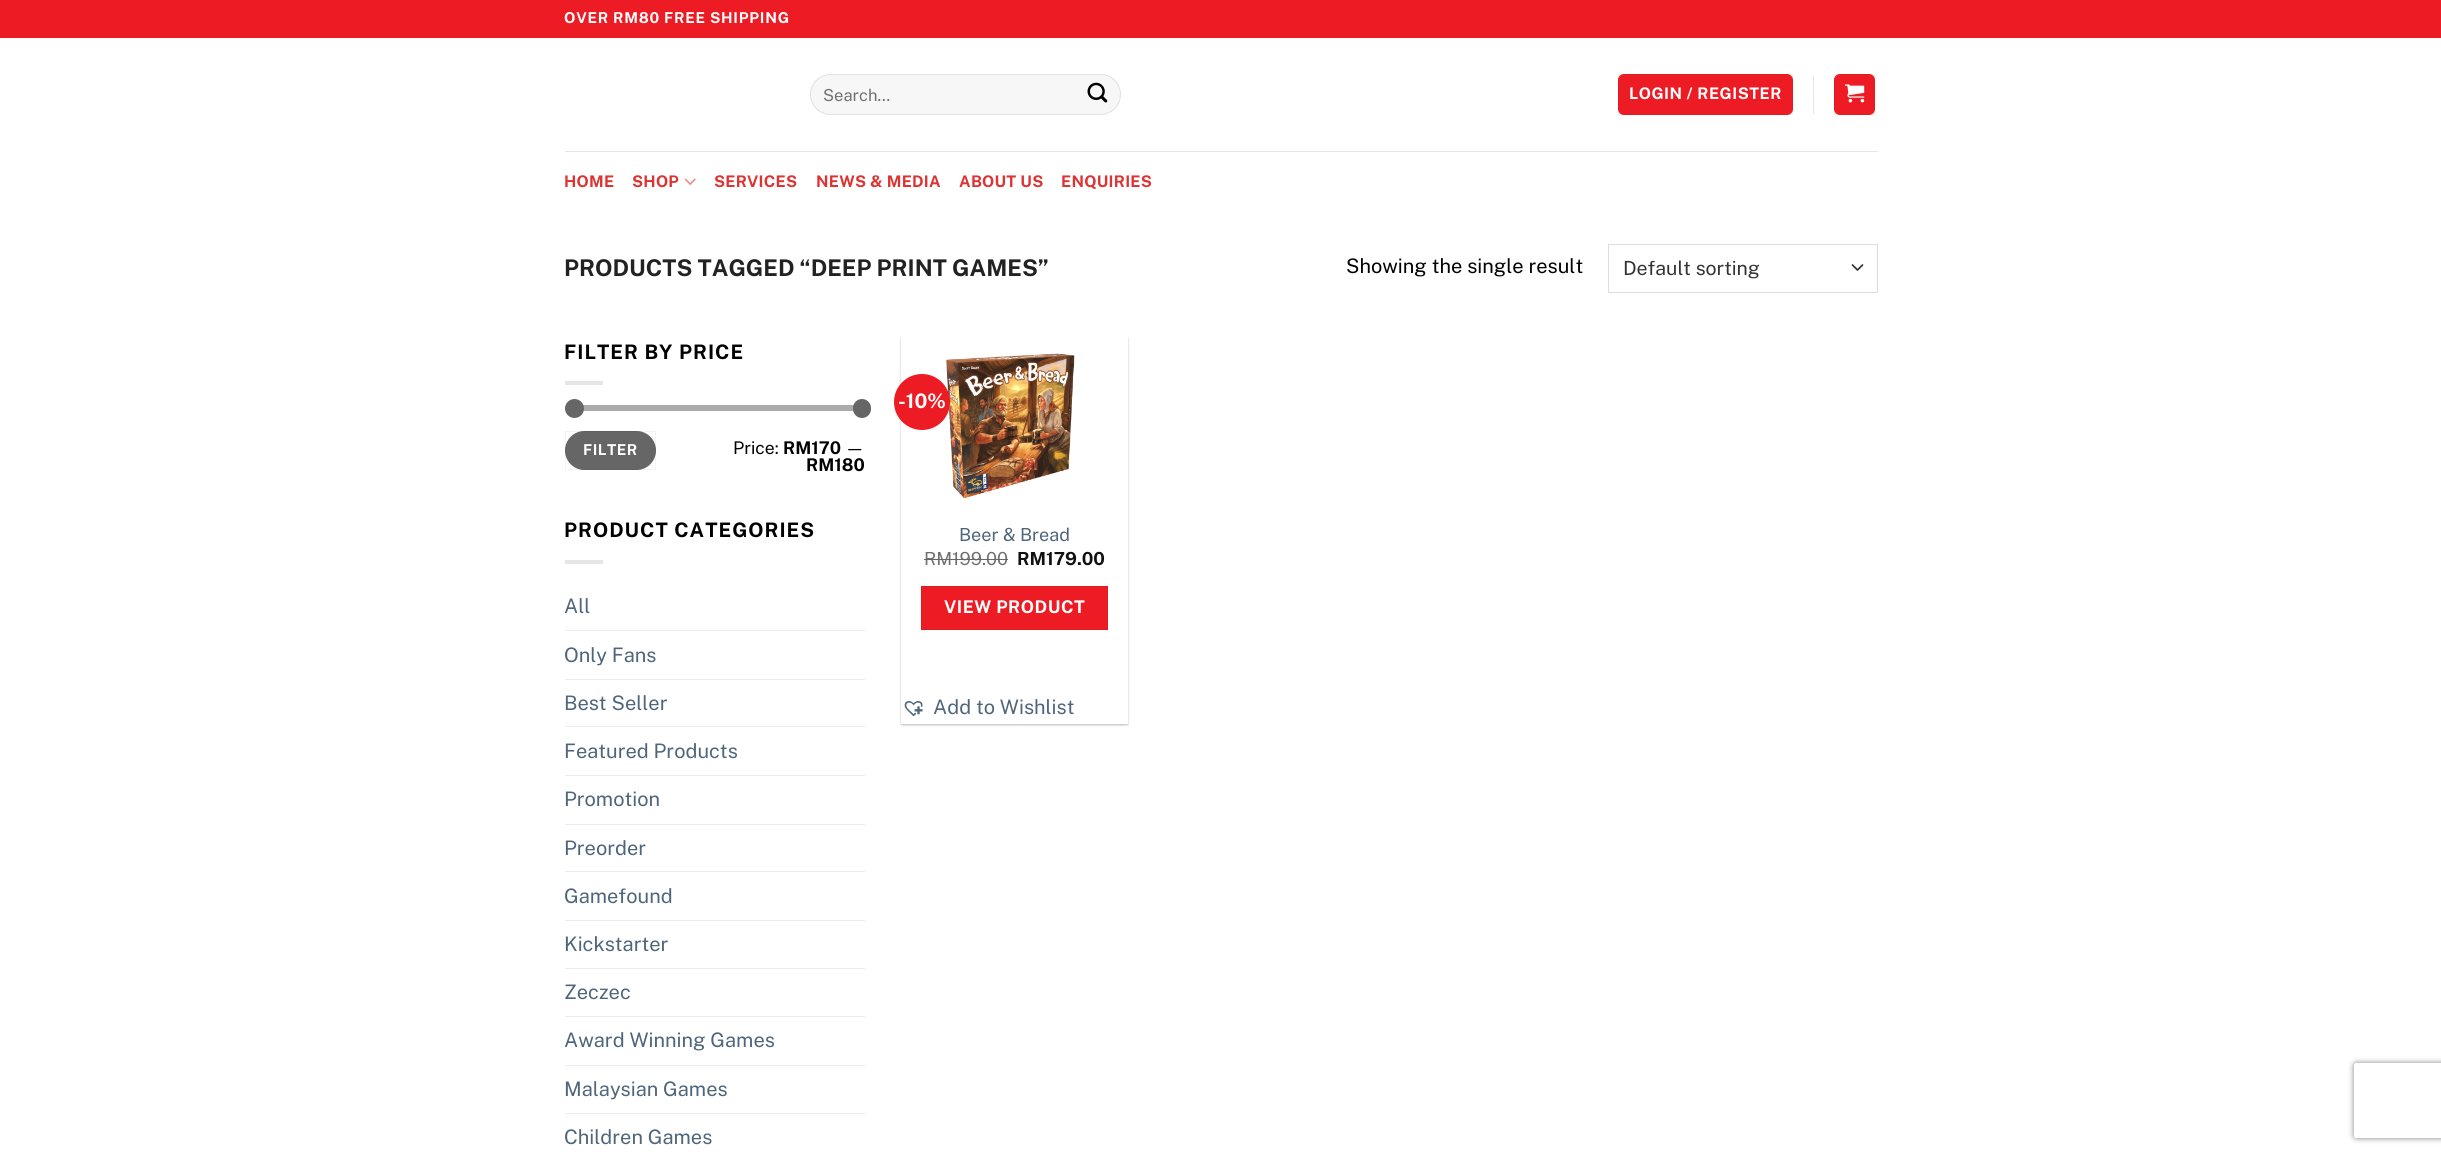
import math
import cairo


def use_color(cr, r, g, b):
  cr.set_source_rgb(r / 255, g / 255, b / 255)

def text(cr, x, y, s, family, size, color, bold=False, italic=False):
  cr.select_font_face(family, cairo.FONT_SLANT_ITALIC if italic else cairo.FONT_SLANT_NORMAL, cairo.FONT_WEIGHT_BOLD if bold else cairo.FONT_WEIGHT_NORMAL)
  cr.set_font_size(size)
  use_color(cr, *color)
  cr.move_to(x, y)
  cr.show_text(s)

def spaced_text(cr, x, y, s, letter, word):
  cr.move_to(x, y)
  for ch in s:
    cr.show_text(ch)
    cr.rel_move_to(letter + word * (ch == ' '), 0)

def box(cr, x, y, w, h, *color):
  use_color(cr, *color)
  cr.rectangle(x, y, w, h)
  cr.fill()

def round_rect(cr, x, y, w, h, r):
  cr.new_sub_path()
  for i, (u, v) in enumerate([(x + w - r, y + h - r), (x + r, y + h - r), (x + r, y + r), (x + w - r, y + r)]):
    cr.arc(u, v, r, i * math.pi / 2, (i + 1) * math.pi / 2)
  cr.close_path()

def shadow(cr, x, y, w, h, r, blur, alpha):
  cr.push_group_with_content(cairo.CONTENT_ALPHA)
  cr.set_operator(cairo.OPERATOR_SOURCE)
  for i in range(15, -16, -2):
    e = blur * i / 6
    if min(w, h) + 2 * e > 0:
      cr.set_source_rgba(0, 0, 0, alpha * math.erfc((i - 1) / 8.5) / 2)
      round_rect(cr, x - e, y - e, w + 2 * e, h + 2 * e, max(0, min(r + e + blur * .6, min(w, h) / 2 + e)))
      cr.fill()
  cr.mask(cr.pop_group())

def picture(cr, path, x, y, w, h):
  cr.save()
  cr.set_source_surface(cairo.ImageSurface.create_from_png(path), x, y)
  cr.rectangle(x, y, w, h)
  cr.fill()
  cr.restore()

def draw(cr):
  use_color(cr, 255, 255, 255)
  cr.paint()
  box(cr, 0, 0, 2441, 38, 237, 28, 36)
  use_color(cr, 247, 247, 247)
  round_rect(cr, 810, 74, 311, 41, 20.5)
  cr.fill()
  round_rect(cr, 810.5, 74.5, 310, 40, 20)
  cr.set_source_rgba(0, 0, 0, 0.09)
  cr.set_line_width(1)
  cr.stroke()
  picture(cr, "img_01.png", 1087, 82, 21, 21)
  use_color(cr, 237, 28, 36)
  round_rect(cr, 1618, 74, 175, 41, 6)
  cr.fill()
  cr.rectangle(1618.5, 74.5, 174, 40)
  cr.set_source_rgba(0, 0, 0, 0.05)
  cr.stroke()
  box(cr, 1813, 76, 1, 38, 230, 230, 230)
  use_color(cr, 237, 28, 36)
  round_rect(cr, 1834, 74, 41, 41, 6)
  cr.fill()
  cr.rectangle(1834.5, 74.5, 40, 40)
  cr.set_source_rgba(0, 0, 0, 0.05)
  cr.stroke()
  picture(cr, "img_02.png", 1845, 84, 20, 19)
  box(cr, 565, 151, 1313, 1, 230, 230, 230)
  picture(cr, "img_03.png", 684, 178, 12, 7)
  cr.new_path()
  cr.move_to(1852.5, 265)
  cr.line_to(1857.5, 270)
  cr.line_to(1862.5, 265)
  use_color(cr, 51, 51, 51)
  cr.set_line_width(1.7)
  cr.set_line_cap(cairo.LINE_CAP_ROUND)
  cr.set_line_join(cairo.LINE_JOIN_ROUND)
  cr.stroke()
  cr.rectangle(1608.5, 244.5, 269, 48)
  use_color(cr, 221, 221, 221)
  cr.set_line_width(1)
  cr.set_line_cap(cairo.LINE_CAP_BUTT)
  cr.set_line_join(cairo.LINE_JOIN_MITER)
  cr.stroke()
  box(cr, 565, 381, 38, 4, 230, 230, 230)
  use_color(cr, 241, 241, 241)
  round_rect(cr, 565, 405, 300, 6, 3)
  cr.fill()
  cr.set_source_rgba(0.4, 0.4, 0.4, 0.5)
  round_rect(cr, 565, 405, 300, 6, 3)
  cr.fill()
  use_color(cr, 102, 102, 102)
  cr.arc(574.5, 408.5, 9.5, 0, 2 * math.pi)
  cr.fill()
  round_rect(cr, 853, 399, 18, 19, 9)
  cr.fill()
  round_rect(cr, 565, 431, 91, 39, 19.5)
  cr.fill()
  cr.rectangle(565.5, 431.5, 90, 38)
  cr.set_source_rgba(0, 0, 0, 0.05)
  cr.stroke()
  box(cr, 565, 560, 38, 4, 230, 230, 230)
  box(cr, 565, 630, 300, 1, 236, 236, 236)
  box(cr, 565, 679, 300, 1, 236, 236, 236)
  box(cr, 565, 726, 300, 1, 236, 236, 236)
  box(cr, 565, 775, 300, 1, 236, 236, 236)
  box(cr, 565, 824, 300, 1, 236, 236, 236)
  box(cr, 565, 871, 300, 1, 236, 236, 236)
  box(cr, 565, 920, 300, 1, 236, 236, 236)
  box(cr, 565, 968, 300, 1, 236, 236, 236)
  box(cr, 565, 1016, 300, 1, 236, 236, 236)
  box(cr, 565, 1065, 300, 1, 236, 236, 236)
  box(cr, 565, 1113, 300, 1, 236, 236, 236)
  use_color(cr, 0, 0, 0)
  shadow(cr, 901, 338, 227, 387, 0, 1, 0.24)
  shadow(cr, 904, 340, 221, 383, 0, 2, 0.12)
  box(cr, 901, 336, 227, 388, 255, 255, 255)
  picture(cr, "img_04.png", 946, 353, 129, 146)
  use_color(cr, 237, 28, 36)
  cr.arc(922, 402, 28, 0, 2 * math.pi)
  cr.fill()
  cr.rectangle(921.5, 586.5, 186, 43)
  cr.fill_preserve()
  use_color(cr, 225, 27, 34)
  cr.stroke()
  picture(cr, "img_05.png", 904, 701, 19, 16)
  cr.save()
  cr.set_fill_rule(cairo.FILL_RULE_EVEN_ODD)
  cr.new_path()
  cr.move_to(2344, 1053)
  cr.line_to(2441, 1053)
  cr.line_to(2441, 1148)
  cr.line_to(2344, 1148)
  cr.close_path()
  cr.move_to(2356.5, 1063)
  cr.line_to(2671.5, 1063)
  cr.curve_to(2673, 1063, 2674, 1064, 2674, 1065.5)
  cr.line_to(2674, 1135.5)
  cr.curve_to(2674, 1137, 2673, 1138, 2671.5, 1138)
  cr.line_to(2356.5, 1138)
  cr.curve_to(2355, 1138, 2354, 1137, 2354, 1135.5)
  cr.line_to(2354, 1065.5)
  cr.curve_to(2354, 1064, 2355, 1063, 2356.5, 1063)
  cr.close_path()
  cr.clip()
  use_color(cr, 128, 128, 128)
  shadow(cr, 2354, 1063, 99, 75, 2.5, 3, 1)
  cr.restore()
  cr.select_font_face("Public Sans", cairo.FONT_SLANT_NORMAL, cairo.FONT_WEIGHT_BOLD)
  cr.set_font_size(15)
  use_color(cr, 255, 255, 255)
  spaced_text(cr, 564, 23, "OVER RM80 FREE SHIPPING", 0.75, 0)
  text(cr, 823, 101, "Search…", "Public Sans", 16.5, (112, 112, 112))
  cr.select_font_face("Public Sans", cairo.FONT_SLANT_NORMAL, cairo.FONT_WEIGHT_BOLD)
  cr.set_font_size(16)
  use_color(cr, 255, 255, 255)
  spaced_text(cr, 1629, 99, "LOGIN / REGISTER", 0.5, 0)
  use_color(cr, 221, 51, 51)
  spaced_text(cr, 564, 187, "HOME", 0.25, 0)
  spaced_text(cr, 632, 187, "SHOP", 0.25, 0)
  spaced_text(cr, 714, 187, "SERVICES", 0.25, 0)
  spaced_text(cr, 816, 187, "NEWS & MEDIA", 0.25, 0)
  spaced_text(cr, 959, 187, "ABOUT US", 0.25, 0)
  spaced_text(cr, 1061, 187, "ENQUIRIES", 0.25, 0)
  text(cr, 564, 276, "PRODUCTS TAGGED “DEEP PRINT GAMES”", "Public Sans", 23, (34, 34, 34), bold=True)
  text(cr, 1346, 273, "Showing the single result", "Public Sans", 20, (0, 0, 0))
  text(cr, 1623, 275, "Default sorting", "Public Sans", 19.5, (51, 51, 51))
  cr.select_font_face("Public Sans", cairo.FONT_SLANT_NORMAL, cairo.FONT_WEIGHT_BOLD)
  cr.set_font_size(20)
  use_color(cr, 0, 0, 0)
  spaced_text(cr, 564, 359, "FILTER BY PRICE", 1, 0)
  cr.set_font_size(15)
  use_color(cr, 255, 255, 255)
  spaced_text(cr, 583, 455, "FILTER", 0.5, 0)
  text(cr, 733, 454, "Price:", "Public Sans", 17.5, (0, 0, 0))
  text(cr, 783, 454, "RM170", "Public Sans", 17.5, (0, 0, 0), bold=True)
  text(cr, 845, 454, "—", "Public Sans", 17.5, (0, 0, 0))
  text(cr, 806, 471, "RM180", "Public Sans", 17.5, (0, 0, 0), bold=True)
  cr.set_font_size(20)
  spaced_text(cr, 564, 537, "PRODUCT CATEGORIES", 1, 0)
  text(cr, 564, 613, "All", "Public Sans", 20, (78, 101, 123))
  text(cr, 564, 662, "Only Fans", "Public Sans", 20, (78, 101, 123))
  text(cr, 564, 710, "Best Seller", "Public Sans", 20, (78, 101, 123))
  text(cr, 564, 758, "Featured Products", "Public Sans", 20, (78, 101, 123))
  text(cr, 564, 806, "Promotion", "Public Sans", 20, (78, 101, 123))
  text(cr, 564, 855, "Preorder", "Public Sans", 20, (78, 101, 123))
  text(cr, 564, 903, "Gamefound", "Public Sans", 20, (78, 101, 123))
  text(cr, 564, 951, "Kickstarter", "Public Sans", 20, (78, 101, 123))
  text(cr, 564, 999, "Zeczec", "Public Sans", 20, (78, 101, 123))
  text(cr, 564, 1047, "Award Winning Games", "Public Sans", 20, (78, 101, 123))
  text(cr, 564, 1096, "Malaysian Games", "Public Sans", 20, (78, 101, 123))
  text(cr, 564, 1144, "Children Games", "Public Sans", 20, (78, 101, 123))
  text(cr, 898, 408, "-10%", "Public Sans", 20, (255, 255, 255), bold=True)
  text(cr, 959, 541, "Beer & Bread", "Public Sans", 18, (78, 101, 123))
  text(cr, 924, 565, "RM199.00", "Public Sans", 18, (112, 112, 112))
  box(cr, 924, 559, 84, 1, 102, 102, 102)
  text(cr, 1017, 565, "RM179.00", "Public Sans", 18, (17, 17, 17), bold=True)
  cr.set_font_size(17.5)
  use_color(cr, 255, 255, 255)
  spaced_text(cr, 944, 613, "VIEW PRODUCT", 0.5, 0)
  text(cr, 933, 714, "Add to Wishlist", "Public Sans", 20, (78, 101, 123))


surface = cairo.ImageSurface(cairo.FORMAT_RGB24, 2441, 1154)
cr = cairo.Context(surface)
options = cairo.FontOptions()
options.set_hint_metrics(cairo.HINT_METRICS_OFF)
options.set_hint_style(cairo.HINT_STYLE_NONE)
cr.set_font_options(options)
cr.set_miter_limit(4)
draw(cr)
surface.write_to_png("out.png")
